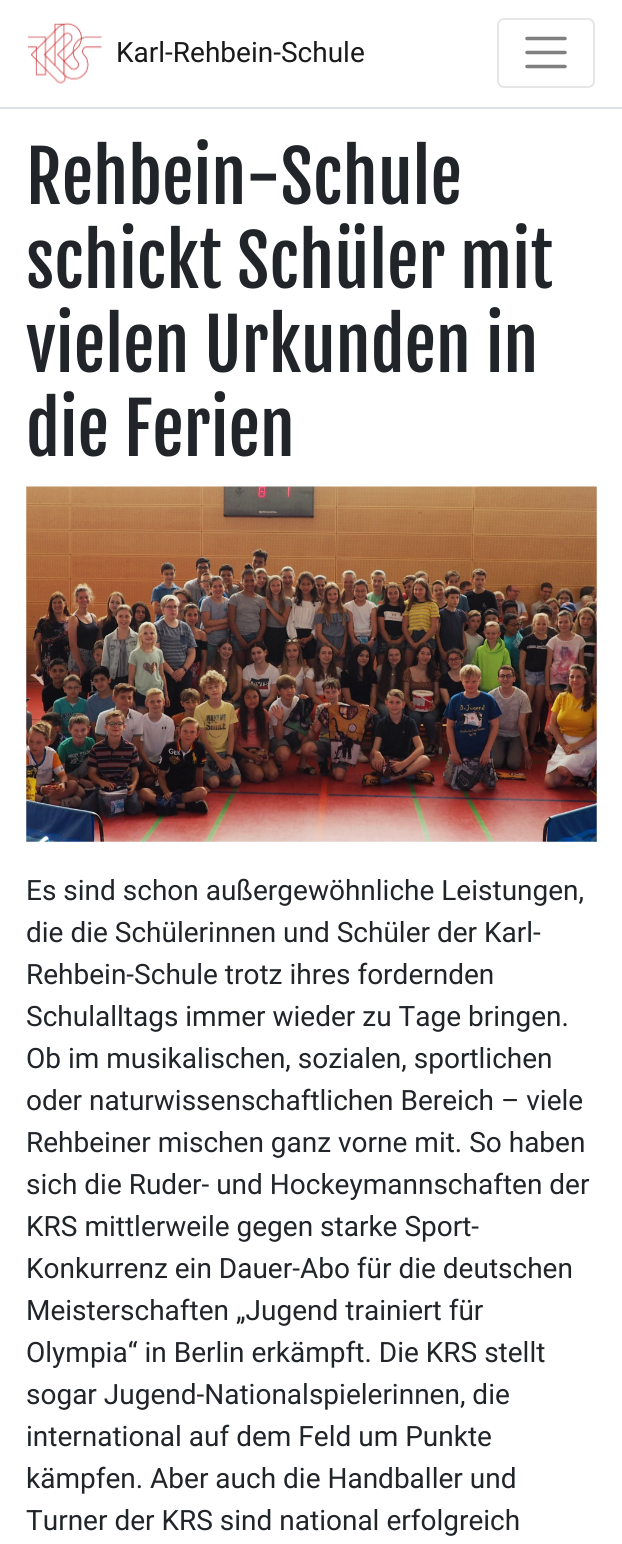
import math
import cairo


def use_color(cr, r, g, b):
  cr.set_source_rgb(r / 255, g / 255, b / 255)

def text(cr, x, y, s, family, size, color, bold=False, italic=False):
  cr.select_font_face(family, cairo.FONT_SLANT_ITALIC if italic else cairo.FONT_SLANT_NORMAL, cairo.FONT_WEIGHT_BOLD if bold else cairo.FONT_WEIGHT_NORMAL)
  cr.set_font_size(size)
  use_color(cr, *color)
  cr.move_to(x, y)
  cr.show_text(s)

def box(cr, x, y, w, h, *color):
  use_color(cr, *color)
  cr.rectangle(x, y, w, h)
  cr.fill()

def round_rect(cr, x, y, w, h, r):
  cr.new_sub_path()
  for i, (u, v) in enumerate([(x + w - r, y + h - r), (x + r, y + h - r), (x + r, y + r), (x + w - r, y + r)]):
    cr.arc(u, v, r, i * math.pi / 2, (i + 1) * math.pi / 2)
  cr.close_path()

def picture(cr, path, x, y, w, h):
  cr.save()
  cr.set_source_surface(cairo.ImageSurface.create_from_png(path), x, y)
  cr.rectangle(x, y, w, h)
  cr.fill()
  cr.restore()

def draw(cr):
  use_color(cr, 255, 255, 255)
  cr.paint()
  box(cr, 0, 107, 622, 2, 222, 226, 230)
  picture(cr, "img_01.png", 28, 22, 74, 62)
  round_rect(cr, 498, 19, 96, 68, 6)
  use_color(cr, 230, 230, 230)
  cr.stroke()
  cr.new_path()
  cr.move_to(527, 38.5)
  cr.line_to(565, 38.5)
  cr.move_to(527, 52.5)
  cr.line_to(565, 52.5)
  cr.move_to(527, 66.5)
  cr.line_to(565, 66.5)
  use_color(cr, 128, 128, 128)
  cr.set_line_width(3.5)
  cr.set_line_cap(cairo.LINE_CAP_ROUND)
  cr.stroke()
  picture(cr, "img_02.png", 26, 486, 571, 356)
  text(cr, 116, 62, "Karl-Rehbein-Schule", "Roboto", 28, (26, 26, 26))
  text(cr, 26, 204, "Rehbein-Schule", "Fjalla One", 70, (33, 37, 41))
  text(cr, 26, 288, "schickt Schüler mit", "Fjalla One", 70, (33, 37, 41))
  text(cr, 26, 372, "vielen Urkunden in", "Fjalla One", 70, (33, 37, 41))
  text(cr, 26, 456, "die Ferien", "Fjalla One", 70, (33, 37, 41))
  text(cr, 26, 900, "Es sind schon außergewöhnliche Leistungen,", "Roboto", 28, (33, 37, 41))
  text(cr, 26, 942, "die die Schülerinnen und Schüler der Karl-", "Roboto", 28, (33, 37, 41))
  text(cr, 26, 984, "Rehbein-Schule trotz ihres fordernden", "Roboto", 28, (33, 37, 41))
  text(cr, 26, 1026, "Schulalltags immer wieder zu Tage bringen.", "Roboto", 28, (33, 37, 41))
  text(cr, 26, 1068, "Ob im musikalischen, sozialen, sportlichen", "Roboto", 28, (33, 37, 41))
  text(cr, 26, 1110, "oder naturwissenschaftlichen Bereich – viele", "Roboto", 28, (33, 37, 41))
  text(cr, 26, 1152, "Rehbeiner mischen ganz vorne mit. So haben", "Roboto", 28, (33, 37, 41))
  text(cr, 26, 1194, "sich die Ruder- und Hockeymannschaften der", "Roboto", 28, (33, 37, 41))
  text(cr, 26, 1236, "KRS mittlerweile gegen starke Sport-", "Roboto", 28, (33, 37, 41))
  text(cr, 26, 1278, "Konkurrenz ein Dauer-Abo für die deutschen", "Roboto", 28, (33, 37, 41))
  text(cr, 26, 1320, "Meisterschaften „Jugend trainiert für", "Roboto", 28, (33, 37, 41))
  text(cr, 26, 1362, "Olympia“ in Berlin erkämpft. Die KRS stellt", "Roboto", 28, (33, 37, 41))
  text(cr, 26, 1404, "sogar Jugend-Nationalspielerinnen, die", "Roboto", 28, (33, 37, 41))
  text(cr, 26, 1446, "international auf dem Feld um Punkte", "Roboto", 28, (33, 37, 41))
  text(cr, 26, 1488, "kämpfen. Aber auch die Handballer und", "Roboto", 28, (33, 37, 41))
  text(cr, 26, 1530, "Turner der KRS sind national erfolgreich", "Roboto", 28, (33, 37, 41))


surface = cairo.ImageSurface(cairo.FORMAT_RGB24, 622, 1544)
cr = cairo.Context(surface)
options = cairo.FontOptions()
options.set_hint_metrics(cairo.HINT_METRICS_OFF)
options.set_hint_style(cairo.HINT_STYLE_NONE)
cr.set_font_options(options)
cr.set_miter_limit(4)
draw(cr)
surface.write_to_png("out.png")
